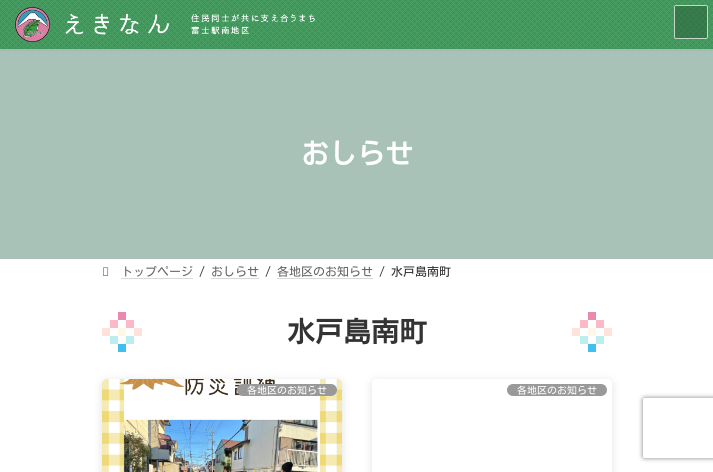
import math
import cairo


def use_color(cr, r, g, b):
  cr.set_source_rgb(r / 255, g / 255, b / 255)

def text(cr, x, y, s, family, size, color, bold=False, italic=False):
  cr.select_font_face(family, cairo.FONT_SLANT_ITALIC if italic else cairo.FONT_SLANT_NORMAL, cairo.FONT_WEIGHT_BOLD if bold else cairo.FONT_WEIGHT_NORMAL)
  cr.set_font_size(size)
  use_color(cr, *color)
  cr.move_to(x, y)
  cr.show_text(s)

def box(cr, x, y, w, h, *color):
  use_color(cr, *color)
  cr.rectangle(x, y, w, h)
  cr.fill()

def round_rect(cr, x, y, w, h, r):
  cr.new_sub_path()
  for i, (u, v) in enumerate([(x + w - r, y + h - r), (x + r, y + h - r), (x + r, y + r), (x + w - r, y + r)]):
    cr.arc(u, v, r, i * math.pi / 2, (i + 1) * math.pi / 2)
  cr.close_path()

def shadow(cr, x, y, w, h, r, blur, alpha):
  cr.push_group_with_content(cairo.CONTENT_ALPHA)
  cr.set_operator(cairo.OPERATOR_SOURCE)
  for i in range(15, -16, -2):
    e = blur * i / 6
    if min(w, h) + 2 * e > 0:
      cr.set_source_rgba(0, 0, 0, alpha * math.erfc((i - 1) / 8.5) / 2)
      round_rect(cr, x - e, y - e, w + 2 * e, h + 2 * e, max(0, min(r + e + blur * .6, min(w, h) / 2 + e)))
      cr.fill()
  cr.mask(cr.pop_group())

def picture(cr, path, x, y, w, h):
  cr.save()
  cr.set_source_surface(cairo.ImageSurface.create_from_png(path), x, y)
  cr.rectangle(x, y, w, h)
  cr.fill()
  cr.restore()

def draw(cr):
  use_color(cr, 255, 255, 255)
  cr.paint()
  box(cr, 0, 49, 713, 210, 168, 194, 184)
  use_color(cr, 0, 0, 0)
  shadow(cr, 0, 1, 713, 49, 0, 1.5, 0.05)
  picture(cr, "img_01.png", 0, 0, 713, 49)
  picture(cr, "img_02.png", 15, 7, 300, 35)
  cr.set_source_rgba(0, 0, 0, 0.2)
  round_rect(cr, 674, 5, 34, 34, 2)
  cr.fill()
  round_rect(cr, 674.5, 5.5, 33, 33, 1.5)
  cr.set_source_rgba(1, 1, 1, 0.7)
  cr.set_line_width(1)
  cr.stroke()
  picture(cr, "img_03.png", 103, 267, 6, 9)
  cr.new_path()
  cr.move_to(121.5, 278.5)
  cr.line_to(193.5, 278.5)
  use_color(cr, 179, 179, 179)
  cr.set_dash([1, 1])
  cr.stroke()
  cr.new_path()
  cr.move_to(211.5, 278.5)
  cr.line_to(259.5, 278.5)
  cr.stroke()
  cr.new_path()
  cr.move_to(277.5, 278.5)
  cr.line_to(373.5, 278.5)
  cr.stroke()
  picture(cr, "img_04.png", 102, 312, 40, 40)
  picture(cr, "img_04.png", 572, 312, 40, 40)
  use_color(cr, 0, 0, 0)
  shadow(cr, 102, 381, 240, 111, 5, 5, 0.12)
  picture(cr, "img_05.png", 102, 379, 240, 93)
  use_color(cr, 153, 153, 153)
  round_rect(cr, 237, 384, 100, 12, 6)
  cr.fill()
  use_color(cr, 0, 0, 0)
  shadow(cr, 372, 381, 240, 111, 5, 5, 0.12)
  use_color(cr, 255, 255, 255)
  round_rect(cr, 372, 379, 240, 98, 5)
  cr.fill()
  use_color(cr, 153, 153, 153)
  round_rect(cr, 507, 384, 100, 12, 6)
  cr.fill()
  cr.save()
  cr.set_fill_rule(cairo.FILL_RULE_EVEN_ODD)
  cr.new_path()
  cr.move_to(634, 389)
  cr.line_to(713, 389)
  cr.line_to(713, 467)
  cr.line_to(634, 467)
  cr.close_path()
  cr.move_to(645, 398)
  cr.line_to(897, 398)
  cr.curve_to(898, 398, 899, 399, 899, 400)
  cr.line_to(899, 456)
  cr.curve_to(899, 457, 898, 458, 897, 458)
  cr.line_to(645, 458)
  cr.curve_to(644, 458, 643, 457, 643, 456)
  cr.line_to(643, 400)
  cr.curve_to(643, 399, 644, 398, 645, 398)
  cr.close_path()
  cr.clip()
  use_color(cr, 128, 128, 128)
  shadow(cr, 643, 398, 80, 60, 2, 2.5, 1)
  cr.restore()
  text(cr, 301, 164, "おしらせ", "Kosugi", 28, (255, 255, 255), bold=True)
  text(cr, 121, 276, "トップページ", "Kosugi", 12, (102, 102, 102))
  text(cr, 199, 276, "/", "Kosugi", 12, (51, 51, 51))
  text(cr, 211, 276, "おしらせ", "Kosugi", 12, (102, 102, 102))
  text(cr, 265, 276, "/", "Kosugi", 12, (51, 51, 51))
  text(cr, 277, 276, "各地区のお知らせ", "Kosugi", 12, (102, 102, 102))
  text(cr, 379, 276, "/ 水戸島南町", "Kosugi", 12, (51, 51, 51))
  text(cr, 287, 342, "水戸島南町", "Kosugi", 28, (51, 51, 51), bold=True)
  text(cr, 247, 394, "各地区のお知らせ", "Kosugi", 10, (255, 255, 255))
  text(cr, 517, 394, "各地区のお知らせ", "Kosugi", 10, (255, 255, 255))


surface = cairo.ImageSurface(cairo.FORMAT_RGB24, 713, 472)
cr = cairo.Context(surface)
options = cairo.FontOptions()
options.set_hint_metrics(cairo.HINT_METRICS_OFF)
options.set_hint_style(cairo.HINT_STYLE_NONE)
cr.set_font_options(options)
cr.set_miter_limit(4)
draw(cr)
surface.write_to_png("out.png")
